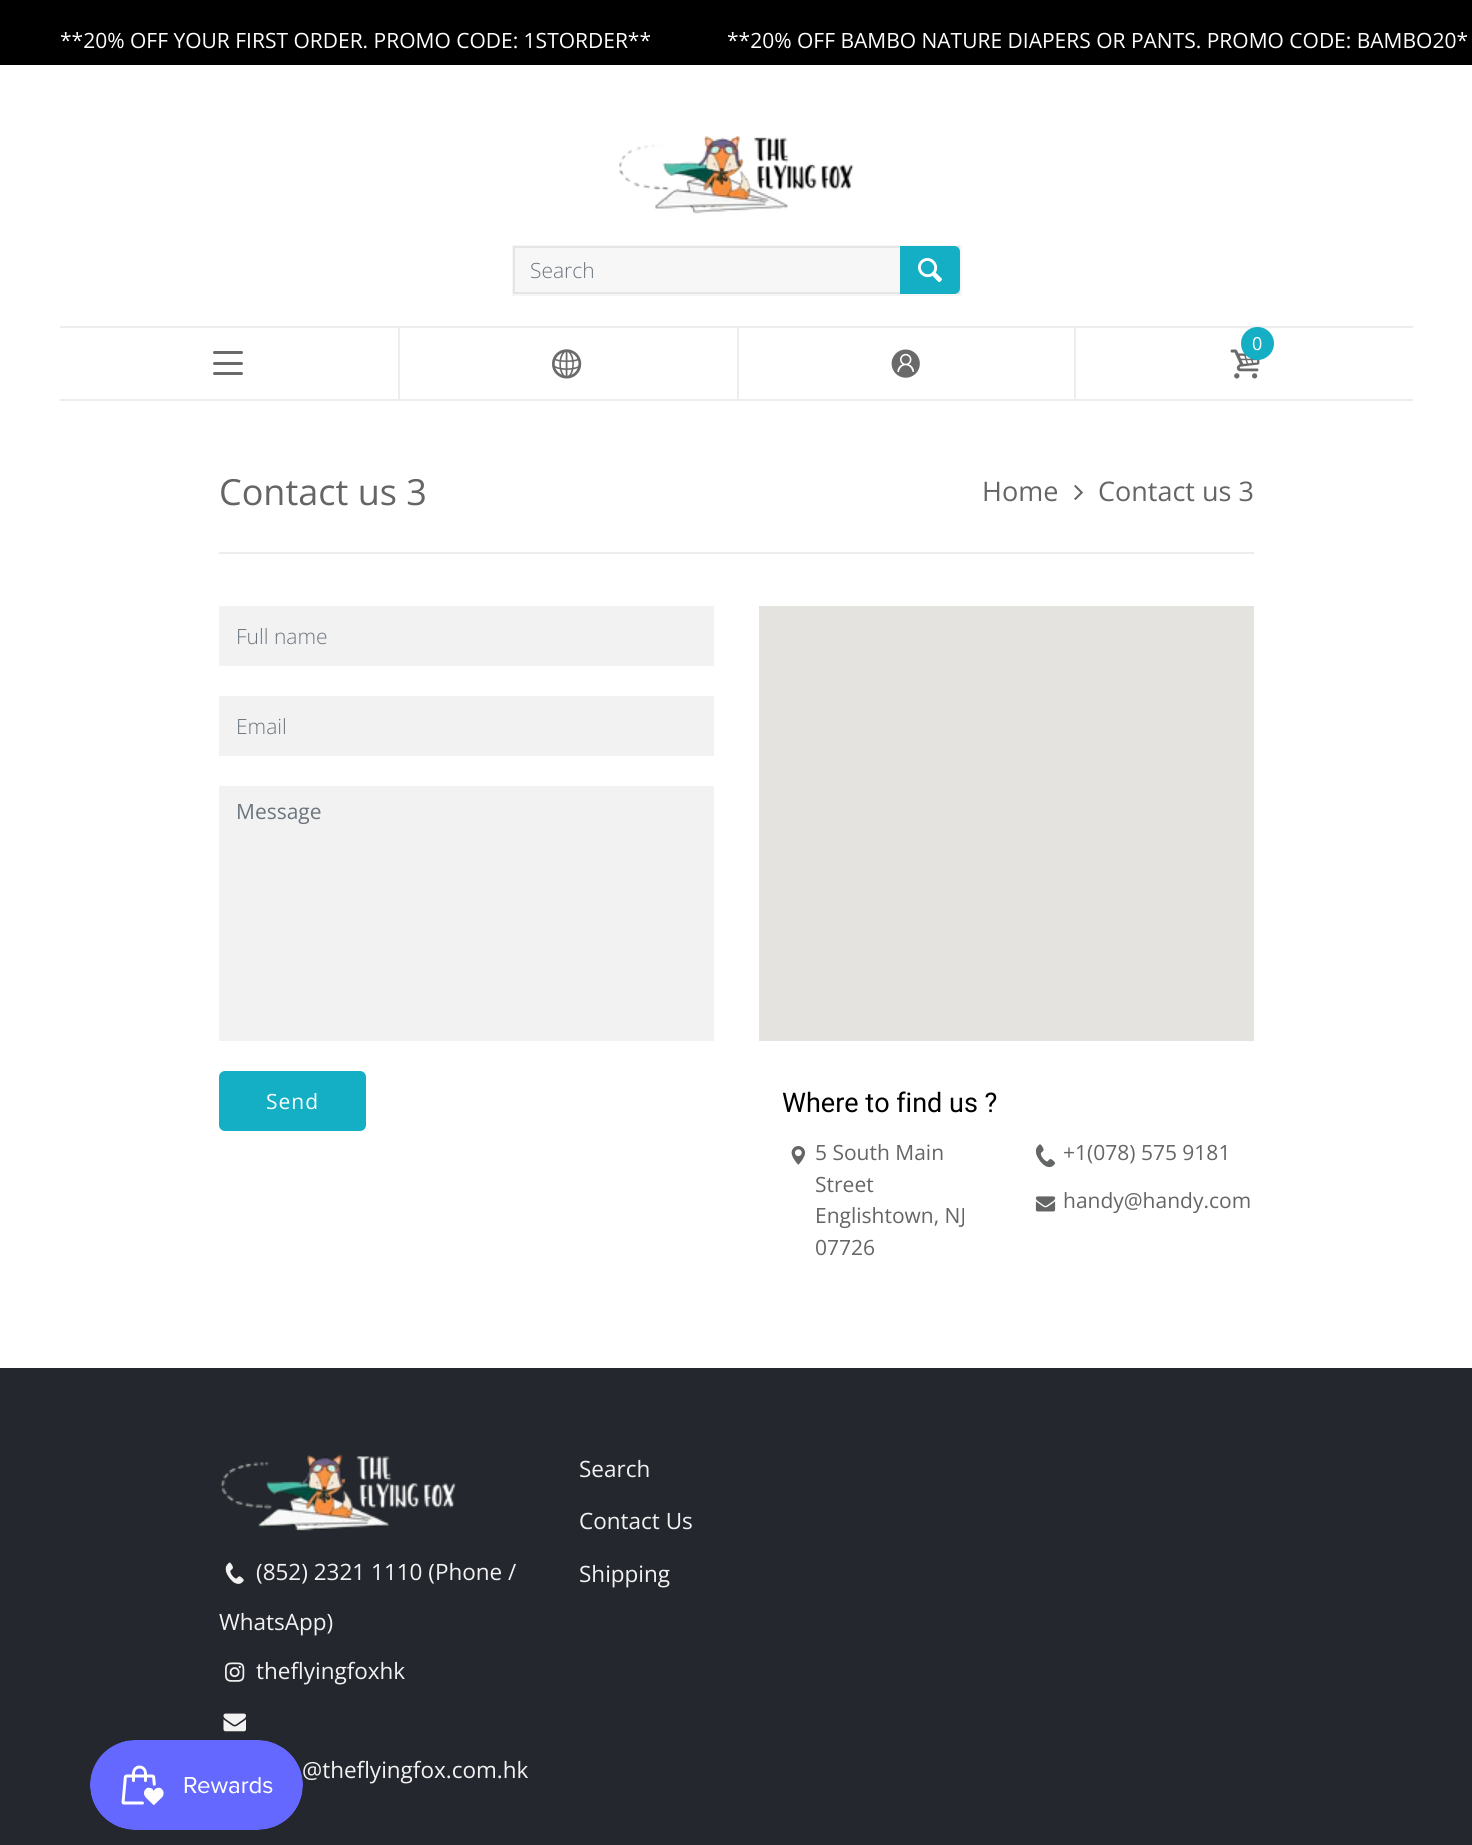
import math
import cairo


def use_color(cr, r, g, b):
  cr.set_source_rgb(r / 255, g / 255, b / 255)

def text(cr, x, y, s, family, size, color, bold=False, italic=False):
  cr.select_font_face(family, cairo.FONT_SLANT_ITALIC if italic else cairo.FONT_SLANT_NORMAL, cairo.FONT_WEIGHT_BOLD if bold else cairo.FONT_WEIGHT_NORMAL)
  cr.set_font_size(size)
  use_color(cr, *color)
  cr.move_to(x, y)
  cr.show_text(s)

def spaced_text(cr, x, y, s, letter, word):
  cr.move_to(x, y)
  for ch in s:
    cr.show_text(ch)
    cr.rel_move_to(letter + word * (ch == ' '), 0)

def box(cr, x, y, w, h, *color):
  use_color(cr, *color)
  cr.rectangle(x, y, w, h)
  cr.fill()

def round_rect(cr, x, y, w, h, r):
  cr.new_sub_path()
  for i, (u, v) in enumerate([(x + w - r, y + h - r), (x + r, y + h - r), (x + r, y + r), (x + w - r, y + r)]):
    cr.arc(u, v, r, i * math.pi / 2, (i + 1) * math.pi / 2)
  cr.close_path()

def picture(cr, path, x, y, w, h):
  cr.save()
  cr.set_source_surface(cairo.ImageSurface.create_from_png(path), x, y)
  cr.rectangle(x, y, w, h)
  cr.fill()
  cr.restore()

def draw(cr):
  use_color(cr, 255, 255, 255)
  cr.paint()
  box(cr, 0, 0, 1472, 65, 0, 0, 0)
  box(cr, 0, 1368, 1472, 477, 36, 40, 46)
  picture(cr, "img_01.png", 90, 1740, 213, 90)
  picture(cr, "img_02.png", 619, 136, 235, 78)
  cr.rectangle(513, 246, 448, 49)
  use_color(cr, 247, 246, 246)
  cr.stroke()
  box(cr, 515, 248, 385, 44, 247, 247, 248)
  cr.rectangle(514, 247, 445, 46)
  use_color(cr, 229, 229, 229)
  cr.stroke()
  use_color(cr, 21, 175, 197)
  cr.new_path()
  cr.move_to(900, 246)
  cr.line_to(954, 246)
  cr.curve_to(957.5, 246, 960, 248.5, 960, 252)
  cr.line_to(960, 288)
  cr.curve_to(960, 291.5, 957.5, 294, 954, 294)
  cr.line_to(900, 294)
  cr.close_path()
  cr.fill()
  picture(cr, "img_03.png", 918, 258, 24, 25)
  box(cr, 60, 326, 1353, 2, 238, 236, 236)
  box(cr, 60, 399, 1353, 2, 238, 236, 236)
  box(cr, 398, 327, 2, 72, 238, 236, 236)
  use_color(cr, 106, 106, 106)
  round_rect(cr, 213, 351, 30, 3, 1.5)
  cr.fill()
  round_rect(cr, 213, 362, 30, 3, 1.5)
  cr.fill()
  round_rect(cr, 213, 372, 30, 3, 1.5)
  cr.fill()
  box(cr, 737, 327, 2, 72, 238, 236, 236)
  picture(cr, "img_04.png", 552, 349, 30, 30)
  box(cr, 1074, 327, 2, 72, 238, 236, 236)
  picture(cr, "img_05.png", 891, 349, 29, 29)
  picture(cr, "img_06.png", 1230, 349, 30, 30)
  use_color(cr, 21, 175, 197)
  cr.arc(1257.5, 343.5, 16.5, 0, 2 * math.pi)
  cr.fill()
  picture(cr, "img_07.png", 1074, 485, 9, 15)
  box(cr, 219, 552, 1035, 2, 238, 236, 236)
  box(cr, 219, 606, 495, 60, 242, 242, 243)
  box(cr, 219, 696, 495, 60, 242, 242, 243)
  box(cr, 219, 786, 495, 255, 242, 242, 243)
  use_color(cr, 21, 175, 197)
  round_rect(cr, 220, 1072, 145, 58, 5)
  cr.fill_preserve()
  cr.stroke()
  box(cr, 759, 606, 495, 435, 229, 227, 223)
  picture(cr, "img_08.png", 791, 1146, 15, 19)
  picture(cr, "img_09.png", 1035, 1144, 21, 24)
  picture(cr, "img_10.png", 1035, 1196, 21, 16)
  picture(cr, "img_11.png", 220, 1454, 236, 78)
  picture(cr, "img_12.png", 225, 1562, 19, 22)
  picture(cr, "img_13.png", 225, 1662, 20, 20)
  picture(cr, "img_14.png", 223, 1713, 23, 19)
  text(cr, 60, 48, "**20% OFF YOUR FIRST ORDER. PROMO CODE: 1STORDER**", "Open Sans", 21, (255, 255, 255))
  text(cr, 727, 48, "**20% OFF BAMBO NATURE DIAPERS OR PANTS. PROMO CODE: BAMBO20*", "Open Sans", 21, (255, 255, 255))
  text(cr, 530, 278, "Search", "Open Sans Light", 21, (108, 117, 125))
  text(cr, 1252, 350, "0", "Open Sans", 18, (255, 255, 255))
  text(cr, 219, 505, "Contact us 3", "Open Sans", 36, (100, 101, 101))
  text(cr, 982, 501, "Home", "Open Sans", 27, (100, 101, 101))
  text(cr, 1098, 501, "Contact us 3", "Open Sans", 27, (100, 101, 101))
  text(cr, 236, 644, "Full name", "Open Sans Light", 21, (108, 117, 125))
  text(cr, 236, 734, "Email", "Open Sans Light", 21, (108, 117, 125))
  text(cr, 236, 819, "Message", "Open Sans", 21, (108, 117, 125))
  use_color(cr, 255, 255, 255)
  spaced_text(cr, 266, 1109, "Send", 1, 0)
  text(cr, 782, 1112, "Where to find us ?", "Roboto", 27, (0, 0, 0))
  text(cr, 815, 1160, "5 South Main", "Open Sans", 21, (100, 101, 101))
  text(cr, 815, 1192, "Street", "Open Sans", 21, (100, 101, 101))
  text(cr, 815, 1223, "Englishtown, NJ", "Open Sans", 21, (100, 101, 101))
  text(cr, 815, 1255, "07726", "Open Sans", 21, (100, 101, 101))
  text(cr, 1063, 1160, "+1(078) 575 9181", "Open Sans", 21, (100, 101, 101))
  text(cr, 1063, 1208, "handy@handy.com", "Open Sans", 21, (100, 101, 101))
  text(cr, 579, 1477, "Search", "Open Sans", 22.5, (242, 242, 243))
  text(cr, 579, 1529, "Contact Us", "Open Sans", 22.5, (242, 242, 243))
  text(cr, 579, 1582, "Shipping", "Open Sans", 22.5, (242, 242, 243))
  text(cr, 256, 1580, "(852) 2321 1110 (Phone /", "Open Sans", 22.5, (242, 242, 243))
  text(cr, 219, 1630, "WhatsApp)", "Open Sans", 22.5, (242, 242, 243))
  text(cr, 256, 1679, "theflyingfoxhk", "Open Sans", 22.5, (242, 242, 243))
  text(cr, 302, 1778, "@theflyingfox.com.hk", "Open Sans", 22.5, (242, 242, 243))


surface = cairo.ImageSurface(cairo.FORMAT_RGB24, 1472, 1845)
cr = cairo.Context(surface)
options = cairo.FontOptions()
options.set_hint_metrics(cairo.HINT_METRICS_OFF)
options.set_hint_style(cairo.HINT_STYLE_NONE)
cr.set_font_options(options)
cr.set_miter_limit(4)
draw(cr)
surface.write_to_png("out.png")
